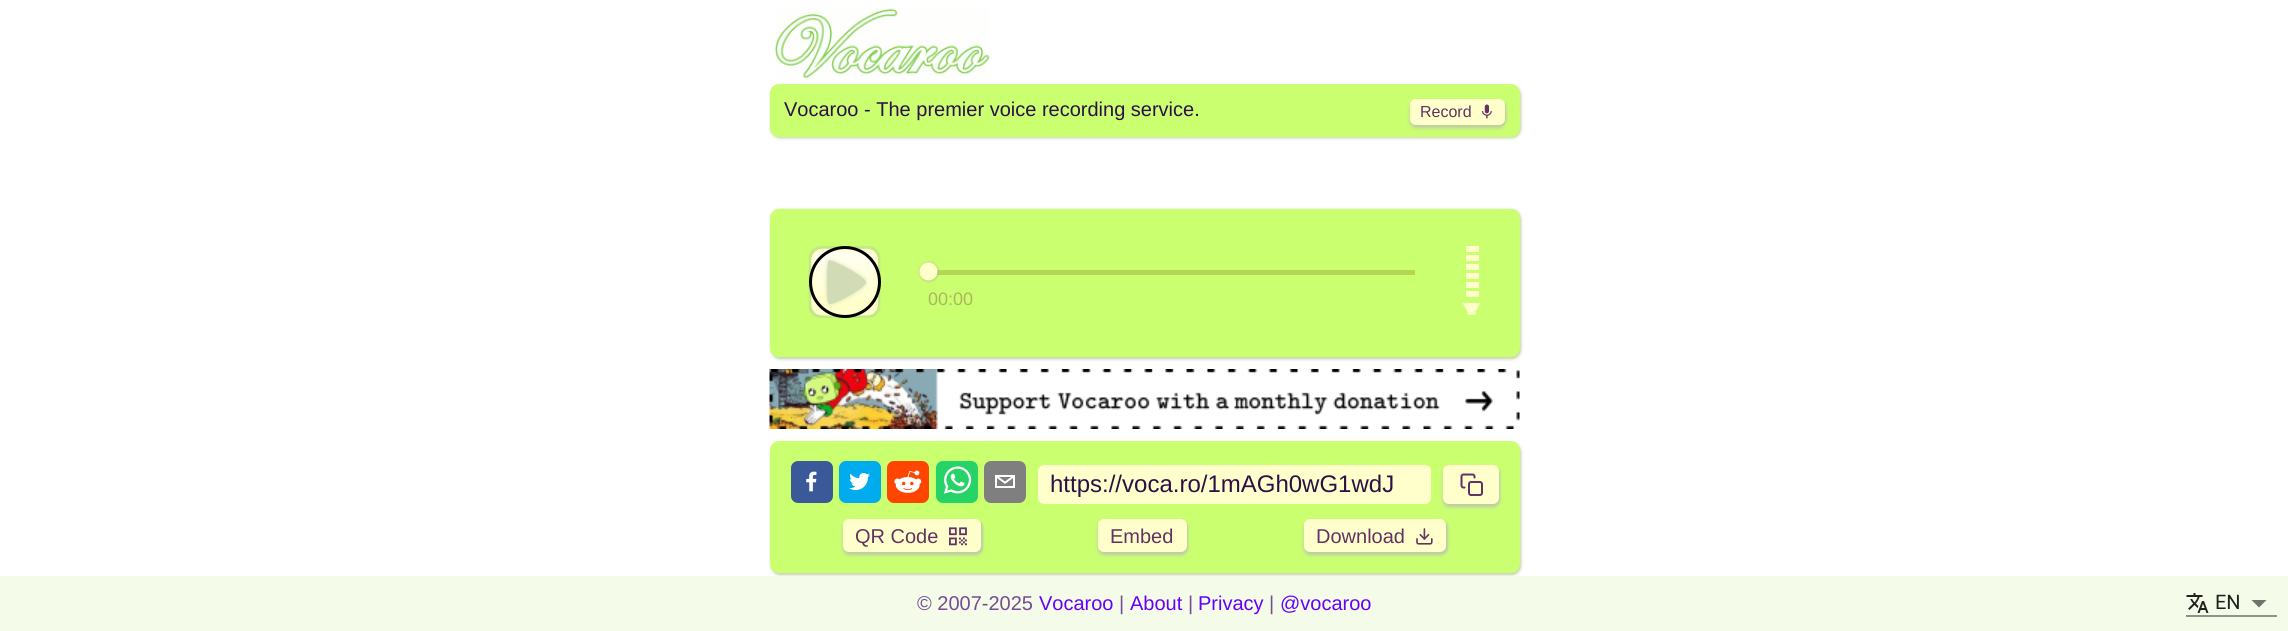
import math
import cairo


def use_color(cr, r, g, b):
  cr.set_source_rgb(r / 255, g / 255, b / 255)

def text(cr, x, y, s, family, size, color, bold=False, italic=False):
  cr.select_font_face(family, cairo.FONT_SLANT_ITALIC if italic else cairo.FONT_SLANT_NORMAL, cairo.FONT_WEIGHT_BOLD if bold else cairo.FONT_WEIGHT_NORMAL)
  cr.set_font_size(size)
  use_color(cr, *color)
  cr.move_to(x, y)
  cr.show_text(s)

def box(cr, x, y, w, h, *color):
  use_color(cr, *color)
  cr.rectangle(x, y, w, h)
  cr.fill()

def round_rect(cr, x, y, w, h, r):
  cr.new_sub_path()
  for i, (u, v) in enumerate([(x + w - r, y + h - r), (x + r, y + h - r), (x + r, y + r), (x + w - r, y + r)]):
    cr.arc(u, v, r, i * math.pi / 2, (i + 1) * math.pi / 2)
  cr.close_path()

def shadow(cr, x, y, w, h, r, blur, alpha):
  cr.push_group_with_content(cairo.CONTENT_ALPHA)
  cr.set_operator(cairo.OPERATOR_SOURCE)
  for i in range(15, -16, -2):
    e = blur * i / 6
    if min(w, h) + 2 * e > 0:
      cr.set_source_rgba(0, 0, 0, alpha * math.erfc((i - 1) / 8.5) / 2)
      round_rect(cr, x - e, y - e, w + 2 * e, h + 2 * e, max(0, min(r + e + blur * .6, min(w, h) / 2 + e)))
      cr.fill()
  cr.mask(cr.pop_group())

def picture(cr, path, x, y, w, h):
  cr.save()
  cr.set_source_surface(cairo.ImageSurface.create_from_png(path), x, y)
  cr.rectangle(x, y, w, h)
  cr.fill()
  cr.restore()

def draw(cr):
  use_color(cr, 255, 255, 255)
  cr.paint()
  picture(cr, "img_01.png", 775, 8, 215, 71)
  use_color(cr, 190, 207, 163)
  shadow(cr, 771, 86, 750, 52, 9, 1.5, 1)
  use_color(cr, 202, 255, 112)
  round_rect(cr, 770, 84, 750, 53, 9)
  cr.fill()
  use_color(cr, 190, 207, 163)
  shadow(cr, 1410, 102, 95, 26, 6, 2, 1)
  shadow(cr, 1412, 101, 94, 25, 6, 1, 1)
  use_color(cr, 255, 255, 204)
  round_rect(cr, 1410, 99, 95, 26, 6)
  cr.fill()
  picture(cr, "img_02.png", 1482, 104, 10, 15)
  use_color(cr, 190, 207, 163)
  shadow(cr, 771, 210, 750, 149, 9, 1.5, 1)
  use_color(cr, 202, 255, 112)
  round_rect(cr, 770, 209, 750, 148, 9)
  cr.fill()
  picture(cr, "img_03.png", 808, 246, 73, 72)
  cr.arc(845, 282, 34.5, 0, 2 * math.pi)
  use_color(cr, 0, 0, 0)
  cr.set_line_width(3)
  cr.stroke()
  box(cr, 929, 270, 486, 5, 181, 214, 84)
  gradient = cairo.RadialGradient(929, 272, 0, 929, 272, 12)
  gradient.add_color_stop_rgba(0, 0.012, 0.012, 0.008, 1)
  gradient.add_color_stop_rgba(1, 0.843, 0.843, 0.675, 0.05)
  cr.set_source(gradient)
  cr.arc(928.5, 271.5, 12, 0, 2 * math.pi)
  cr.fill()
  use_color(cr, 255, 255, 204)
  cr.arc(928.5, 271.5, 9, 0, 2 * math.pi)
  cr.fill()
  box(cr, 1466, 246, 13, 6, 255, 255, 204)
  box(cr, 1466, 255, 13, 6, 255, 255, 204)
  box(cr, 1466, 264, 13, 6, 255, 255, 204)
  box(cr, 1466, 273, 13, 6, 255, 255, 204)
  box(cr, 1466, 282, 13, 6, 255, 255, 204)
  box(cr, 1466, 291, 13, 6, 255, 255, 204)
  cr.new_path()
  cr.move_to(1475.5, 314.5)
  cr.line_to(1467.5, 314.5)
  cr.line_to(1467.5, 311.5)
  cr.line_to(1462.5, 303)
  cr.line_to(1480.5, 303)
  cr.line_to(1475.5, 311.5)
  cr.close_path()
  cr.fill()
  picture(cr, "img_04.png", 769, 369, 751, 60)
  use_color(cr, 190, 207, 163)
  shadow(cr, 771, 443, 750, 132, 9, 1.5, 1)
  use_color(cr, 202, 255, 112)
  round_rect(cr, 770, 441, 750, 132, 9)
  cr.fill()
  picture(cr, "img_05.png", 791, 461, 42, 42)
  picture(cr, "img_06.png", 839, 461, 42, 42)
  picture(cr, "img_07.png", 887, 461, 42, 42)
  picture(cr, "img_08.png", 936, 461, 42, 42)
  use_color(cr, 127, 127, 127)
  round_rect(cr, 984, 461, 42, 42, 7)
  cr.fill()
  use_color(cr, 255, 255, 255)
  cr.new_path()
  cr.move_to(995, 475)
  cr.line_to(995, 488)
  cr.line_to(1015, 488)
  cr.line_to(1015, 475)
  cr.close_path()
  cr.move_to(1011, 477)
  cr.line_to(1005, 481.5)
  cr.line_to(999, 477)
  cr.close_path()
  cr.move_to(997, 486)
  cr.line_to(997, 478)
  cr.line_to(1005, 484)
  cr.line_to(1013, 478)
  cr.line_to(1013, 486)
  cr.close_path()
  cr.fill()
  use_color(cr, 255, 255, 204)
  round_rect(cr, 1038, 465, 393, 39, 6)
  cr.fill()
  use_color(cr, 190, 207, 163)
  shadow(cr, 1443, 468, 56, 39, 6, 2, 1)
  shadow(cr, 1445, 467, 55, 39, 6, 1, 1)
  use_color(cr, 255, 255, 204)
  round_rect(cr, 1443, 465, 56, 39, 6)
  cr.fill()
  picture(cr, "img_09.png", 1460, 473, 23, 23)
  use_color(cr, 190, 207, 163)
  shadow(cr, 843, 522, 138, 33, 6, 2, 1)
  shadow(cr, 845, 521, 138, 33, 6, 1, 1)
  use_color(cr, 255, 255, 204)
  round_rect(cr, 843, 519, 138, 33, 6)
  cr.fill()
  picture(cr, "img_10.png", 949, 527, 18, 19)
  use_color(cr, 190, 207, 163)
  shadow(cr, 1098, 522, 89, 33, 6, 2, 1)
  shadow(cr, 1100, 521, 88, 33, 6, 1, 1)
  use_color(cr, 255, 255, 204)
  round_rect(cr, 1098, 519, 89, 33, 6)
  cr.fill()
  use_color(cr, 190, 207, 163)
  shadow(cr, 1304, 522, 142, 33, 6, 2, 1)
  shadow(cr, 1305, 521, 143, 33, 6, 1, 1)
  use_color(cr, 255, 255, 204)
  round_rect(cr, 1304, 519, 142, 33, 6)
  cr.fill()
  picture(cr, "img_11.png", 1416, 528, 17, 17)
  box(cr, 0, 576, 2288, 55, 244, 251, 232)
  picture(cr, "img_12.png", 2186, 593, 23, 20)
  use_color(cr, 112, 115, 107)
  cr.new_path()
  cr.move_to(2251.5, 600)
  cr.line_to(2259, 607.5)
  cr.line_to(2266.5, 600)
  cr.close_path()
  cr.fill()
  box(cr, 2186, 615, 91, 2, 142, 146, 135)
  text(cr, 784, 116, "Vocaroo - The premier voice recording service.", "Liberation Sans", 20, (45, 16, 69))
  text(cr, 1420, 117, "Record", "Liberation Sans", 16, (99, 50, 99))
  text(cr, 928, 305, "00:00", "Liberation Sans", 18, (171, 183, 91))
  text(cr, 1050, 492, "https://voca.ro/1mAGh0wG1wdJ", "Liberation Sans", 24, (45, 16, 69))
  text(cr, 855, 543, "QR Code", "Liberation Sans", 20, (99, 50, 99))
  text(cr, 1110, 543, "Embed", "Liberation Sans", 20, (99, 50, 99))
  text(cr, 1316, 543, "Download", "Liberation Sans", 20, (99, 50, 99))
  text(cr, 917, 610, "© 2007-2025", "Liberation Sans", 20, (117, 76, 150))
  text(cr, 1039, 610, "Vocaroo", "Liberation Sans", 20, (102, 0, 255))
  text(cr, 1119, 610, "|", "Liberation Sans", 20, (117, 76, 150))
  text(cr, 1130, 610, "About", "Liberation Sans", 20, (102, 0, 255))
  text(cr, 1188, 610, "|", "Liberation Sans", 20, (117, 76, 150))
  text(cr, 1198, 610, "Privacy", "Liberation Sans", 20, (102, 0, 255))
  text(cr, 1269, 610, "|", "Liberation Sans", 20, (117, 76, 150))
  text(cr, 1280, 610, "@vocaroo", "Liberation Sans", 20, (102, 0, 255))
  text(cr, 2215, 609, "EN", "Roboto", 20, (32, 33, 30))


surface = cairo.ImageSurface(cairo.FORMAT_RGB24, 2288, 631)
cr = cairo.Context(surface)
options = cairo.FontOptions()
options.set_hint_metrics(cairo.HINT_METRICS_OFF)
options.set_hint_style(cairo.HINT_STYLE_NONE)
cr.set_font_options(options)
cr.set_miter_limit(4)
draw(cr)
surface.write_to_png("out.png")
